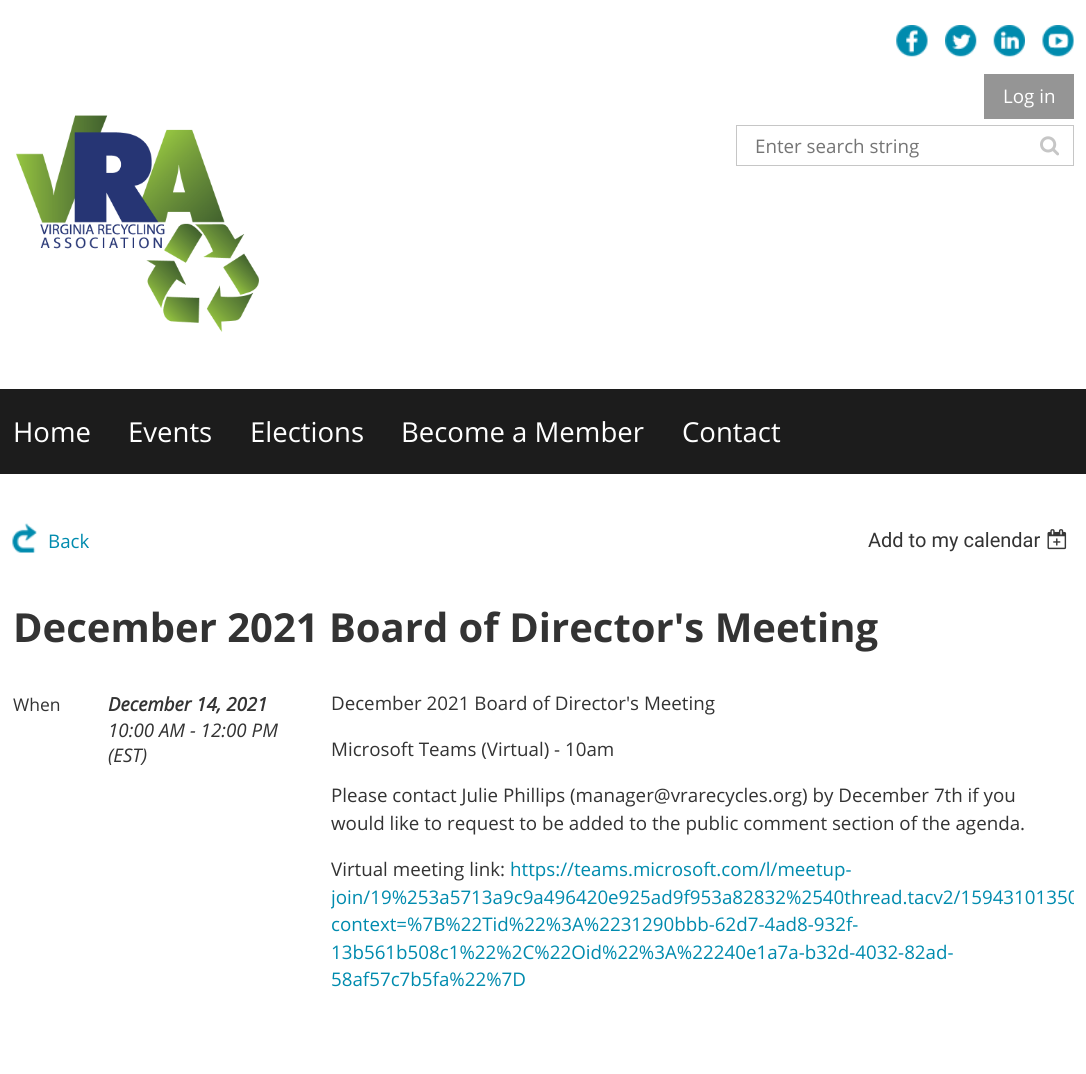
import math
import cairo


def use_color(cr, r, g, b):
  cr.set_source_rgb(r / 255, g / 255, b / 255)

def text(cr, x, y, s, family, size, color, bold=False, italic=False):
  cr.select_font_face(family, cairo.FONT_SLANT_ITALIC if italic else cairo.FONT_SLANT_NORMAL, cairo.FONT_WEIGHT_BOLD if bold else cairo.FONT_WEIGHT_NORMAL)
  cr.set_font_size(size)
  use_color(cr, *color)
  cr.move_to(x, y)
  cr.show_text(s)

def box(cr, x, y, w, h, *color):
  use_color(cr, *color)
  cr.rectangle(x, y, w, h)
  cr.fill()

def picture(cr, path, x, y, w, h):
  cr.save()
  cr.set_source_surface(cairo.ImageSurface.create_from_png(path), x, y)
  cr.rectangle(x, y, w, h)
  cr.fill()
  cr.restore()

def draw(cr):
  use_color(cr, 255, 255, 255)
  cr.paint()
  picture(cr, "img_01.png", 896, 25, 32, 32)
  picture(cr, "img_02.png", 945, 25, 32, 32)
  picture(cr, "img_03.png", 993, 25, 32, 32)
  picture(cr, "img_04.png", 1042, 25, 32, 32)
  picture(cr, "img_05.png", 16, 115, 243, 217)
  box(cr, 984, 74, 90, 45, 149, 149, 149)
  cr.rectangle(736.5, 125.5, 337, 40)
  use_color(cr, 198, 198, 198)
  cr.set_line_width(1)
  cr.stroke()
  picture(cr, "img_06.png", 1040, 136, 19, 20)
  box(cr, 0, 389, 1086, 85, 28, 28, 28)
  picture(cr, "img_07.png", 12, 523, 25, 30)
  picture(cr, "img_08.png", 1047, 529, 20, 21)
  text(cr, 1003, 103, "Log in", "Open Sans", 18.75, (255, 255, 255))
  text(cr, 755, 153, "Enter search string", "Open Sans", 18.75, (117, 117, 117))
  text(cr, 13, 442, "Home", "Open Sans", 27.5, (255, 255, 255))
  text(cr, 128, 442, "Events", "Open Sans", 27.5, (255, 255, 255))
  text(cr, 250, 442, "Elections", "Open Sans", 27.5, (255, 255, 255))
  text(cr, 401, 442, "Become a Member", "Open Sans", 27.5, (255, 255, 255))
  text(cr, 682, 442, "Contact", "Open Sans", 27.5, (255, 255, 255))
  text(cr, 48, 548, "Back", "Open Sans", 18.75, (0, 139, 174))
  text(cr, 868, 547, "Add to my calendar", "Roboto", 20, (51, 51, 51))
  text(cr, 13, 642, "December 2021 Board of Director's Meeting", "Open Sans", 40, (51, 51, 51), bold=True)
  text(cr, 13, 711, "When", "Open Sans", 17.5, (51, 51, 51))
  text(cr, 108, 711, "December 14, 2021", "Open Sans", 18.75, (51, 51, 51), bold=True, italic=True)
  text(cr, 108, 737, "10:00 AM - 12:00 PM", "Open Sans", 18.75, (51, 51, 51), italic=True)
  text(cr, 108, 762, "(EST)", "Open Sans", 18.75, (51, 51, 51), italic=True)
  text(cr, 331, 710, "December 2021 Board of Director's Meeting", "Open Sans", 18.75, (51, 51, 51))
  text(cr, 331, 756, "Microsoft Teams (Virtual) - 10am", "Open Sans", 18.75, (51, 51, 51))
  text(cr, 331, 802, "Please contact Julie Phillips (manager@vrarecycles.org) by December 7th if you", "Open Sans", 18.75, (51, 51, 51))
  text(cr, 331, 830, "would like to request to be added to the public comment section of the agenda.", "Open Sans", 18.75, (51, 51, 51))
  text(cr, 331, 876, "Virtual meeting link:", "Open Sans", 18.75, (51, 51, 51))
  text(cr, 510, 876, "https://teams.microsoft.com/l/meetup-", "Open Sans", 18.75, (0, 139, 174))
  cr.save()
  cr.rectangle(331, 689, 743, 322)
  cr.clip()
  text(cr, 331, 904, "join/19%253a5713a9c9a496420e925ad9f953a82832%2540thread.tacv2/15943101350", "Open Sans", 18.75, (0, 139, 174))
  cr.restore()
  text(cr, 331, 931, "context=%7B%22Tid%22%3A%2231290bbb-62d7-4ad8-932f-", "Open Sans", 18.75, (0, 139, 174))
  text(cr, 331, 959, "13b561b508c1%22%2C%22Oid%22%3A%22240e1a7a-b32d-4032-82ad-", "Open Sans", 18.75, (0, 139, 174))
  text(cr, 331, 986, "58af57c7b5fa%22%7D", "Open Sans", 18.75, (0, 139, 174))


surface = cairo.ImageSurface(cairo.FORMAT_RGB24, 1086, 1074)
cr = cairo.Context(surface)
options = cairo.FontOptions()
options.set_hint_metrics(cairo.HINT_METRICS_OFF)
options.set_hint_style(cairo.HINT_STYLE_NONE)
cr.set_font_options(options)
cr.set_miter_limit(4)
draw(cr)
surface.write_to_png("out.png")
